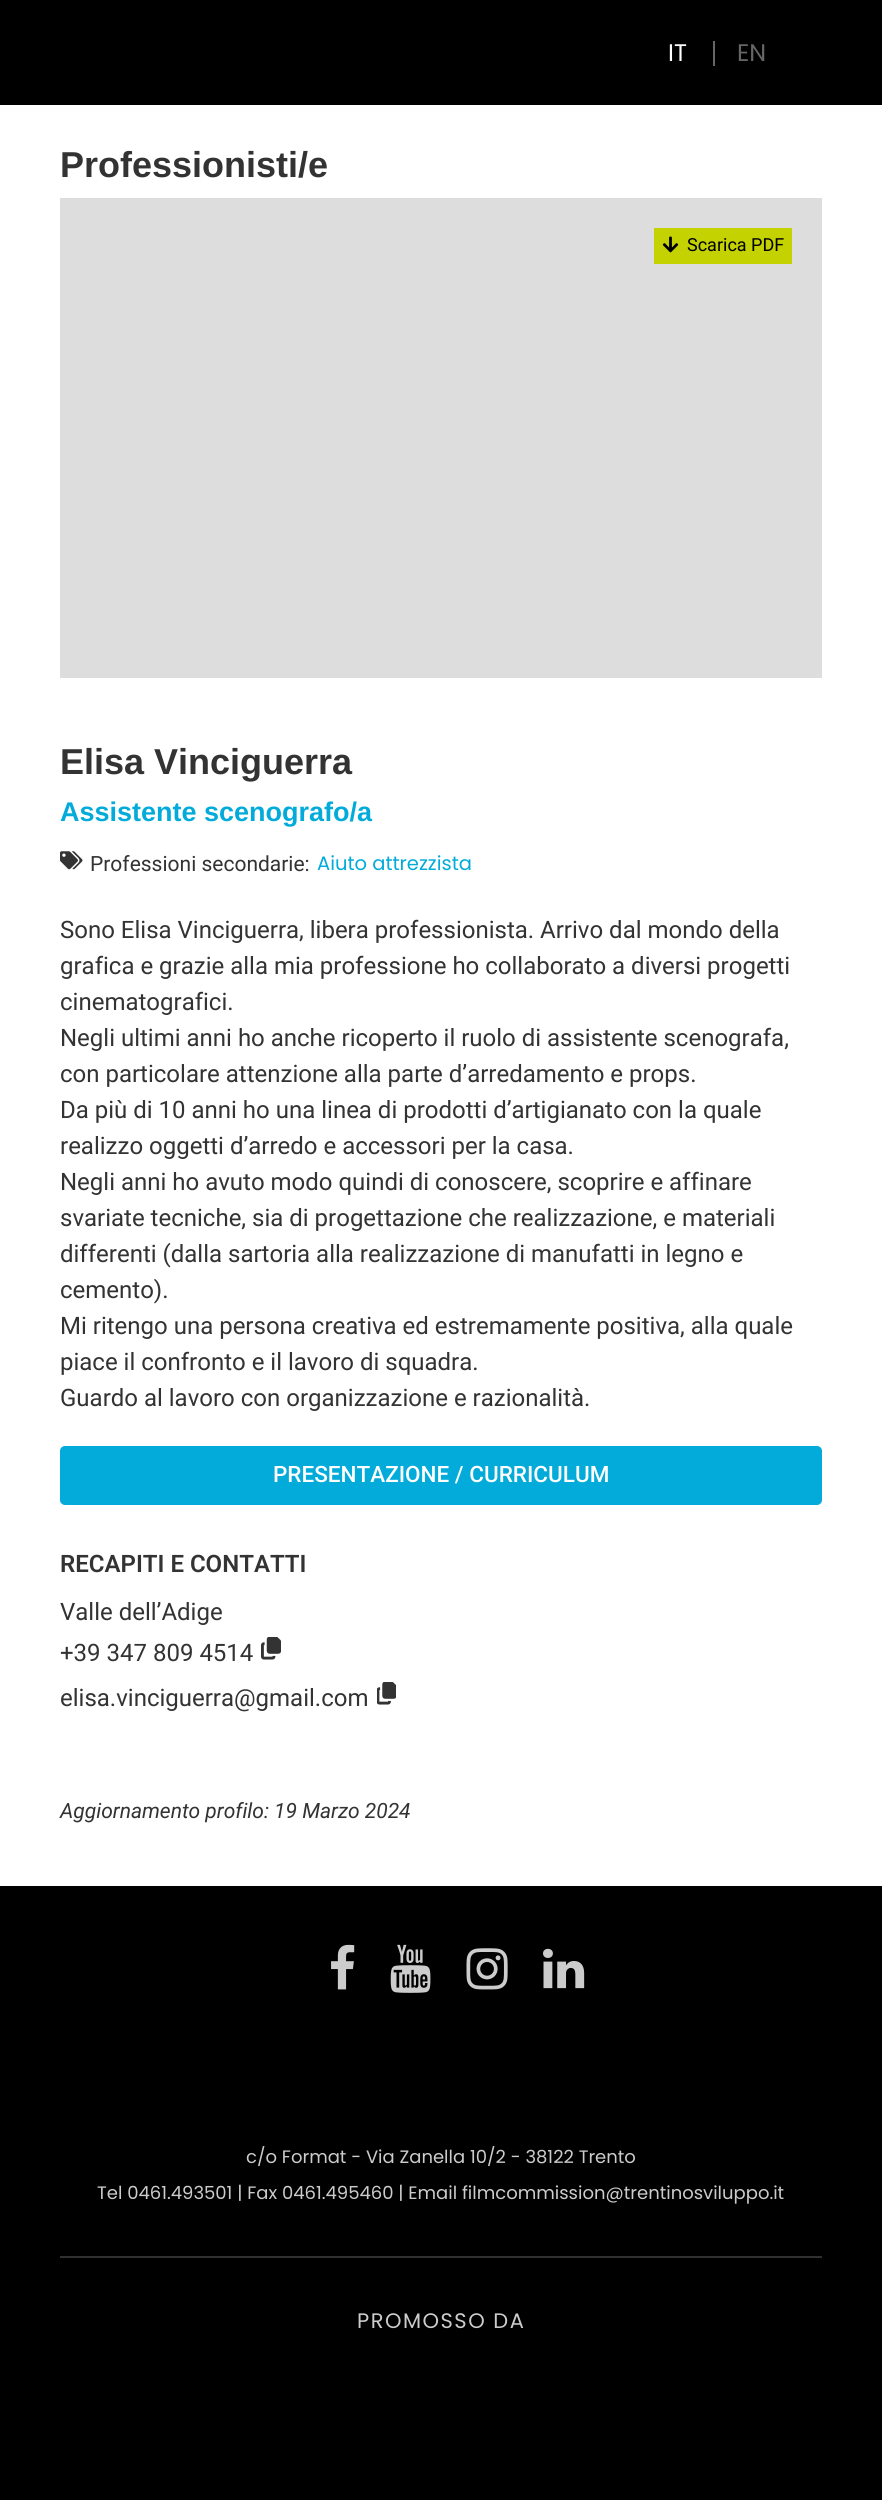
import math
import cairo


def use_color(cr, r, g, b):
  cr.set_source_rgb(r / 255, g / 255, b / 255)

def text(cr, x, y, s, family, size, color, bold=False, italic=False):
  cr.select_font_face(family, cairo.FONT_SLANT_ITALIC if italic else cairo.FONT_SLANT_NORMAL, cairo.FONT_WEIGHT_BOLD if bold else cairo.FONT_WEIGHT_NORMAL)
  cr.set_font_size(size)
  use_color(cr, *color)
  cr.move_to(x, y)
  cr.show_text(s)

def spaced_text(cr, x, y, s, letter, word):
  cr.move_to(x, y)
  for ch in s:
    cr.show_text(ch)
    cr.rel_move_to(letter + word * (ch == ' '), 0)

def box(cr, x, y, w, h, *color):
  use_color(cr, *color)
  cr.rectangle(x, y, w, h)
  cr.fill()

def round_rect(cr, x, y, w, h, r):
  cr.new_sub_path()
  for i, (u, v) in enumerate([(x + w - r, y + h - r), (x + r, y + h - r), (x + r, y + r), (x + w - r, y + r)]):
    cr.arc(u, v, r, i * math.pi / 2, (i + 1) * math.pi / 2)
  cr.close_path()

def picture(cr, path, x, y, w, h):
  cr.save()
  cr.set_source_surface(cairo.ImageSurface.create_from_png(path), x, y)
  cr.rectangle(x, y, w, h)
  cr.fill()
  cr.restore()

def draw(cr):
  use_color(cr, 255, 255, 255)
  cr.paint()
  box(cr, 0, 0, 882, 105, 0, 0, 0)
  box(cr, 713, 41, 2, 25, 102, 102, 102)
  box(cr, 60, 198, 762, 480, 221, 221, 221)
  box(cr, 654, 228, 138, 36, 195, 210, 0)
  picture(cr, "img_01.png", 662, 236, 17, 17)
  picture(cr, "img_02.png", 60, 851, 23, 19)
  use_color(cr, 2, 171, 217)
  round_rect(cr, 60, 1446, 762, 59, 5)
  cr.fill()
  picture(cr, "img_03.png", 261, 1637, 20, 23)
  picture(cr, "img_04.png", 377, 1682, 19, 23)
  box(cr, 0, 1886, 882, 614, 0, 0, 0)
  box(cr, 60, 2256, 762, 2, 48, 48, 48)
  picture(cr, "img_05.png", 331, 1944, 24, 46)
  picture(cr, "img_06.png", 390, 1944, 41, 49)
  picture(cr, "img_07.png", 466, 1948, 42, 42)
  picture(cr, "img_08.png", 543, 1948, 42, 41)
  text(cr, 668, 61, "IT", "Poppins", 24, (255, 255, 255))
  text(cr, 737, 61, "EN", "Poppins", 24, (102, 102, 102))
  text(cr, 60, 177, "Professionisti/e", "Liberation Sans", 36, (51, 51, 51), bold=True)
  text(cr, 687, 251, "Scarica PDF", "Roboto", 18, (0, 0, 0))
  text(cr, 60, 774, "Elisa Vinciguerra", "Liberation Sans", 36, (51, 51, 51), bold=True)
  text(cr, 60, 821, "Assistente scenografo/a", "Liberation Sans", 27, (2, 171, 217), bold=True)
  text(cr, 90, 871, "Professioni secondarie:", "Roboto", 21, (51, 51, 51))
  text(cr, 317, 870, "Aiuto attrezzista", "Poppins", 19.5, (2, 171, 217))
  text(cr, 60, 938, "Sono Elisa Vinciguerra, libera professionista. Arrivo dal mondo della", "Roboto", 24, (51, 51, 51))
  text(cr, 60, 974, "grafica e grazie alla mia professione ho collaborato a diversi progetti", "Roboto", 24, (51, 51, 51))
  text(cr, 60, 1010, "cinematografici.", "Roboto", 24, (51, 51, 51))
  text(cr, 60, 1046, "Negli ultimi anni ho anche ricoperto il ruolo di assistente scenografa,", "Roboto", 24, (51, 51, 51))
  text(cr, 60, 1082, "con particolare attenzione alla parte d’arredamento e props.", "Roboto", 24, (51, 51, 51))
  text(cr, 60, 1118, "Da più di 10 anni ho una linea di prodotti d’artigianato con la quale", "Roboto", 24, (51, 51, 51))
  text(cr, 60, 1154, "realizzo oggetti d’arredo e accessori per la casa.", "Roboto", 24, (51, 51, 51))
  text(cr, 60, 1190, "Negli anni ho avuto modo quindi di conoscere, scoprire e affinare", "Roboto", 24, (51, 51, 51))
  text(cr, 60, 1226, "svariate tecniche, sia di progettazione che realizzazione, e materiali", "Roboto", 24, (51, 51, 51))
  text(cr, 60, 1262, "differenti (dalla sartoria alla realizzazione di manufatti in legno e", "Roboto", 24, (51, 51, 51))
  text(cr, 60, 1298, "cemento).", "Roboto", 24, (51, 51, 51))
  text(cr, 60, 1334, "Mi ritengo una persona creativa ed estremamente positiva, alla quale", "Roboto", 24, (51, 51, 51))
  text(cr, 60, 1370, "piace il confronto e il lavoro di squadra.", "Roboto", 24, (51, 51, 51))
  text(cr, 60, 1406, "Guardo al lavoro con organizzazione e razionalità.", "Roboto", 24, (51, 51, 51))
  text(cr, 273, 1482, "PRESENTAZIONE / CURRICULUM", "Roboto Medium", 22.5, (255, 255, 255))
  text(cr, 60, 1572, "RECAPITI E CONTATTI", "Roboto SemiBold", 24, (51, 51, 51))
  text(cr, 60, 1620, "Valle dell’Adige", "Roboto", 24, (51, 51, 51))
  text(cr, 60, 1661, "+39 347 809 4514", "Roboto", 24, (51, 51, 51))
  text(cr, 60, 1706, "elisa.vinciguerra@gmail.com", "Roboto", 24, (51, 51, 51))
  text(cr, 60, 1818, "Aggiornamento profilo: 19 Marzo 2024", "Roboto", 21, (51, 51, 51), italic=True)
  text(cr, 246, 2163, "c/o Format - Via Zanella 10/2 - 38122 Trento", "Poppins", 18, (204, 204, 204))
  text(cr, 97, 2199, "Tel 0461.493501 | Fax 0461.495460 | Email filmcommission@trentinosviluppo.it", "Poppins", 18, (204, 204, 204))
  cr.set_font_size(21)
  spaced_text(cr, 357, 2328, "PROMOSSO DA", 1.5, 0)


surface = cairo.ImageSurface(cairo.FORMAT_RGB24, 882, 2500)
cr = cairo.Context(surface)
options = cairo.FontOptions()
options.set_hint_metrics(cairo.HINT_METRICS_OFF)
options.set_hint_style(cairo.HINT_STYLE_NONE)
cr.set_font_options(options)
cr.set_miter_limit(4)
draw(cr)
surface.write_to_png("out.png")
